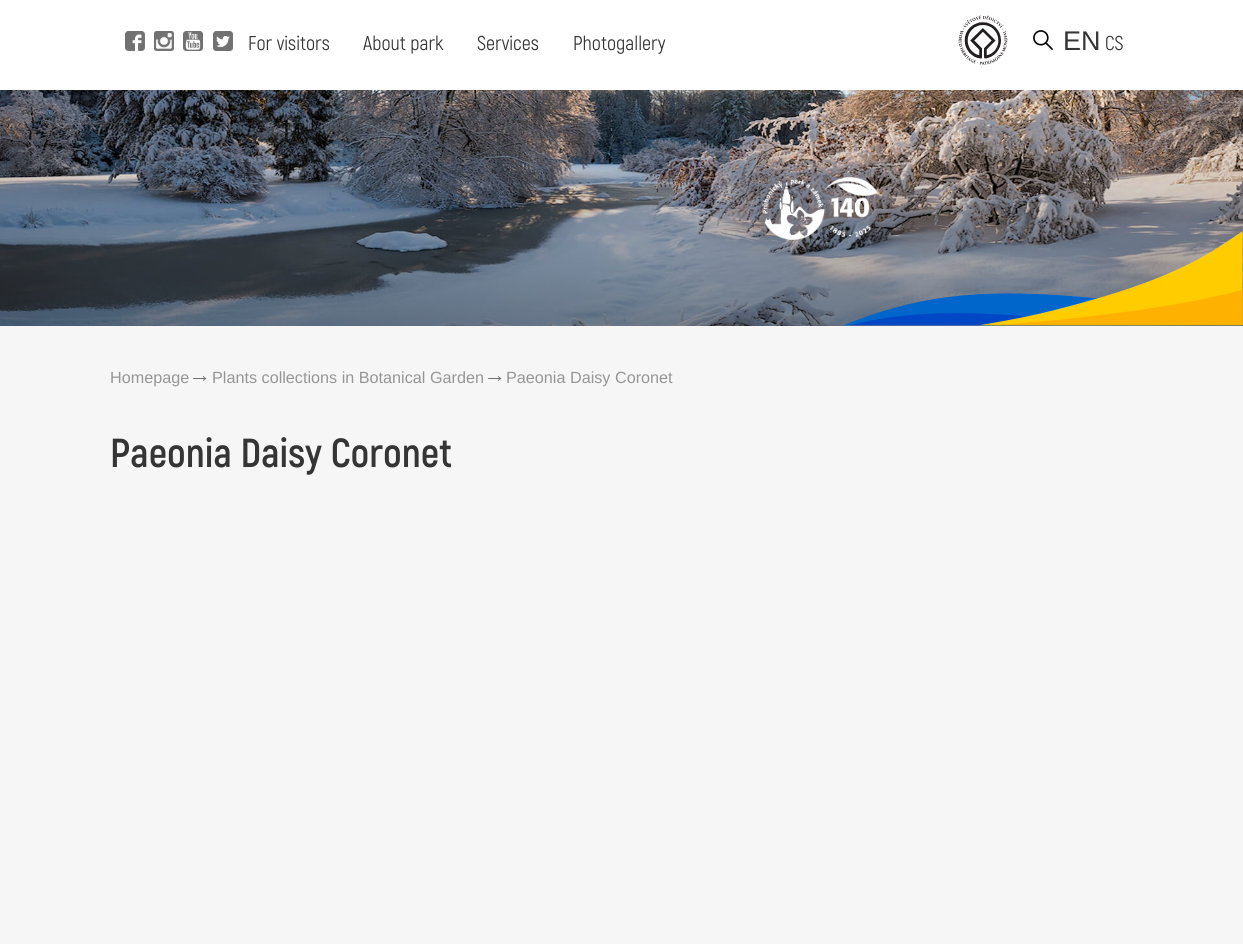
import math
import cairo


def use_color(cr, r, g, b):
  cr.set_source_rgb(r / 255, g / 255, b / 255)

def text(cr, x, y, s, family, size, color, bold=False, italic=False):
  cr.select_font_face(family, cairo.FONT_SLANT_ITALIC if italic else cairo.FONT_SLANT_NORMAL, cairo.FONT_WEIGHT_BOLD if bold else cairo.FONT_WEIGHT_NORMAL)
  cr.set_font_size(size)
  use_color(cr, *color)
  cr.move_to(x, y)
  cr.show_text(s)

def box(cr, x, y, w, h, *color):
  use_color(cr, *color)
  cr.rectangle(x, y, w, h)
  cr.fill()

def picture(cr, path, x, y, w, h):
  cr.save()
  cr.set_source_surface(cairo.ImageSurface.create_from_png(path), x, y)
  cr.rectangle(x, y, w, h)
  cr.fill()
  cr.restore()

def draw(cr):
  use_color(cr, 246, 246, 246)
  cr.paint()
  box(cr, 0, 0, 1243, 90, 255, 255, 255)
  picture(cr, "img_01.png", 125, 31, 20, 20)
  picture(cr, "img_02.png", 154, 31, 20, 20)
  picture(cr, "img_03.png", 183, 31, 20, 20)
  picture(cr, "img_04.png", 213, 31, 20, 20)
  picture(cr, "img_05.png", 958, 15, 50, 50)
  picture(cr, "img_06.png", 1033, 30, 20, 20)
  picture(cr, "img_07.png", 0, 90, 1243, 236)
  picture(cr, "img_09.png", 843, 231, 400, 95)
  picture(cr, "img_08.png", 761, 176, 117, 64)
  picture(cr, "img_10.png", 193, 376, 14, 5)
  picture(cr, "img_10.png", 488, 376, 14, 5)
  text(cr, 248, 50, "For visitors", "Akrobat", 20, (53, 53, 53))
  text(cr, 363, 50, "About park", "Akrobat", 20, (53, 53, 53))
  text(cr, 477, 50, "Services", "Akrobat", 20, (53, 53, 53))
  text(cr, 573, 50, "Photogallery", "Akrobat", 20, (53, 53, 53))
  text(cr, 1063, 50, "EN", "Liberation Sans", 27, (53, 53, 53))
  text(cr, 1105, 50, "CS", "Akrobat", 20, (53, 53, 53))
  text(cr, 110, 383, "Homepage", "Liberation Sans", 16.2, (150, 150, 150))
  text(cr, 212, 383, "Plants collections in Botanical Garden", "Liberation Sans", 16.2, (150, 150, 150))
  text(cr, 506, 383, "Paeonia Daisy Coronet", "Liberation Sans", 16.2, (150, 150, 150))
  text(cr, 110, 467, "Paeonia Daisy Coronet", "Akrobat", 40.5, (53, 53, 53), bold=True)


surface = cairo.ImageSurface(cairo.FORMAT_RGB24, 1243, 944)
cr = cairo.Context(surface)
options = cairo.FontOptions()
options.set_hint_metrics(cairo.HINT_METRICS_OFF)
options.set_hint_style(cairo.HINT_STYLE_NONE)
cr.set_font_options(options)
cr.set_miter_limit(4)
draw(cr)
surface.write_to_png("out.png")
